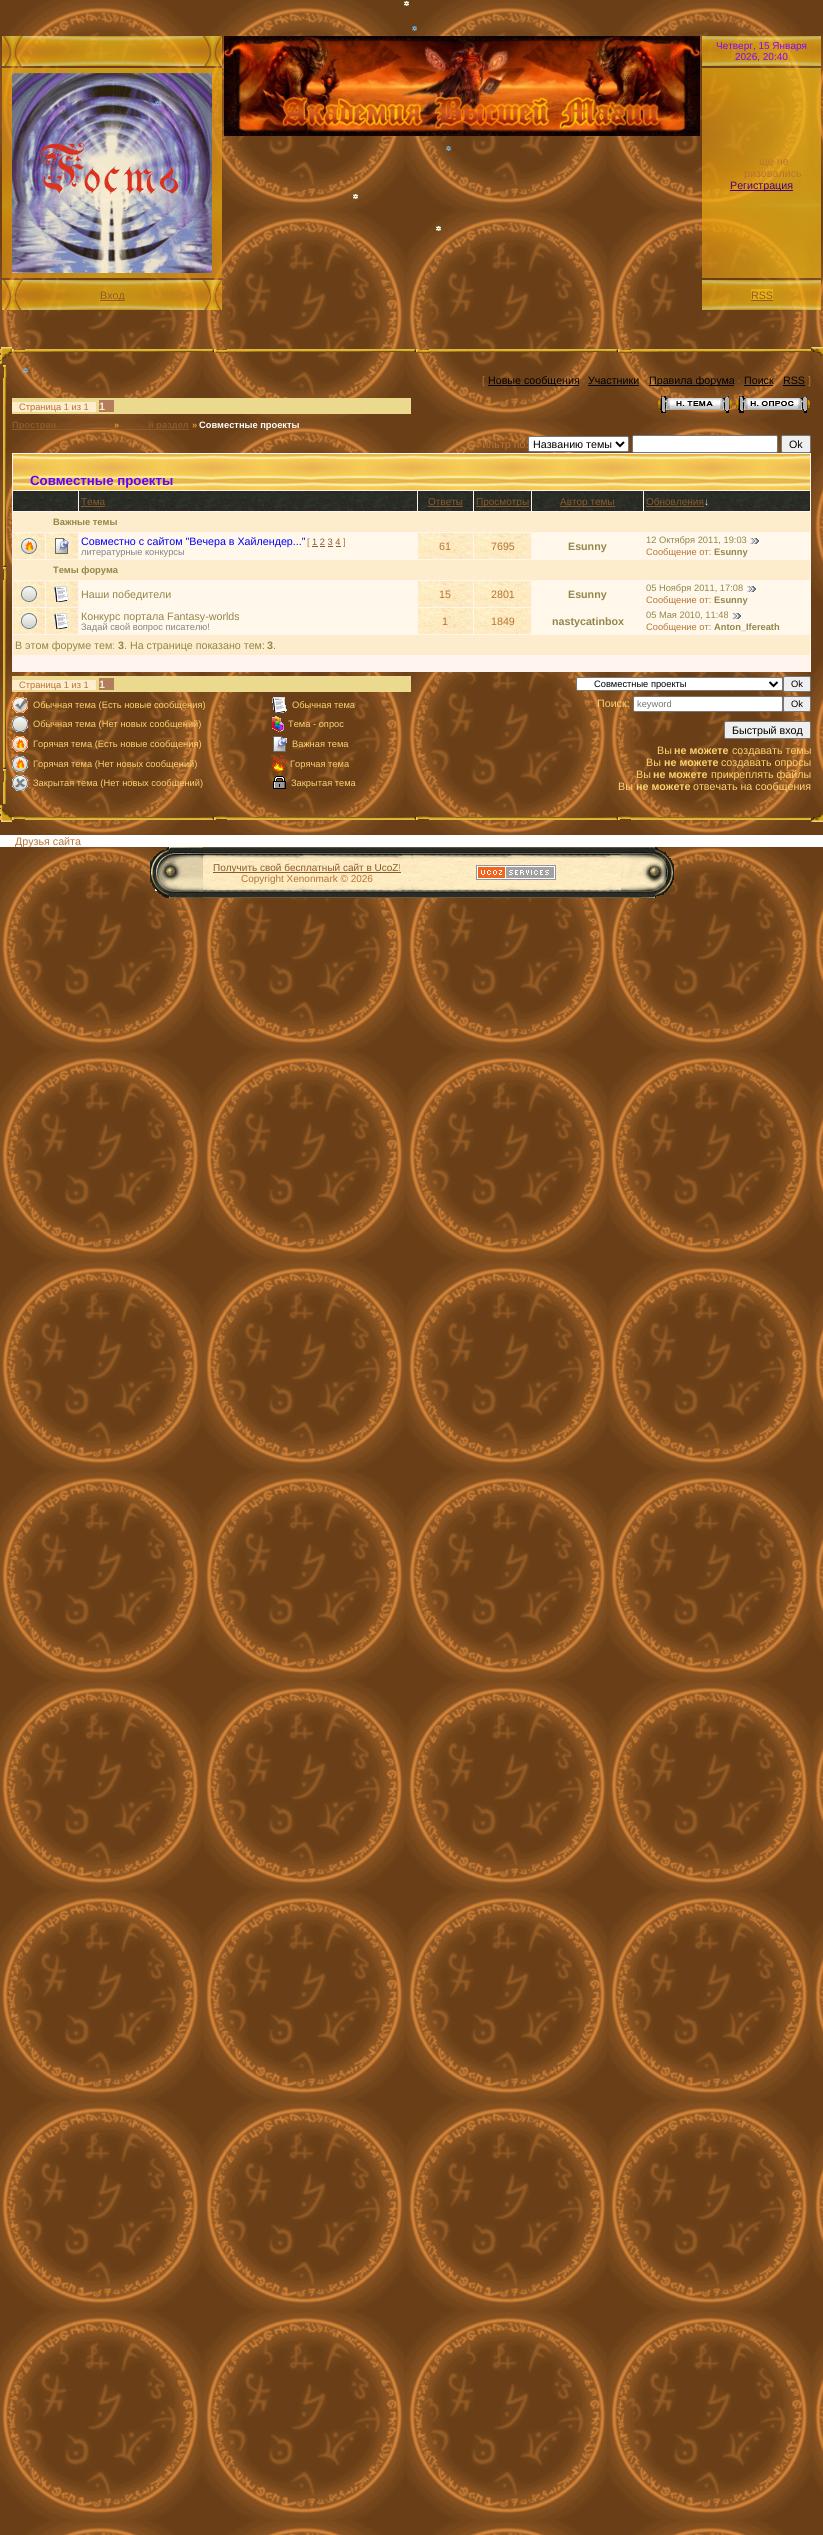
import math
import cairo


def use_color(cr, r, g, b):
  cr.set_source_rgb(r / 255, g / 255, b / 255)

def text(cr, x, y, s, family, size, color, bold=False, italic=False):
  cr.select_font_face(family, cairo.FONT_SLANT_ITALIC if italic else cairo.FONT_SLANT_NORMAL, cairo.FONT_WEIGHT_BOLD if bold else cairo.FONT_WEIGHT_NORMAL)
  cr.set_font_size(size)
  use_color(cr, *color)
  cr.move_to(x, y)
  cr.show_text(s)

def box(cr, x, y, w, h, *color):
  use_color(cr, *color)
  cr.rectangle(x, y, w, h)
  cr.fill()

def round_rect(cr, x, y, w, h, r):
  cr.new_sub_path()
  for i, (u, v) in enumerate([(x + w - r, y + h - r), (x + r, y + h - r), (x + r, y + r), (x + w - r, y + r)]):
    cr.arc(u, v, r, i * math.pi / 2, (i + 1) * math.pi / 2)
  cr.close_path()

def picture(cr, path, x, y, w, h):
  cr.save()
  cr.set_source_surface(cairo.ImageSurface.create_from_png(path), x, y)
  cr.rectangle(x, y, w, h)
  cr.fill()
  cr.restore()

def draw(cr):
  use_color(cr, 255, 255, 255)
  cr.paint()
  picture(cr, "img_03.png", 0, 0, 823, 2535)
  picture(cr, "img_01.png", 404, 1, 5, 5)
  picture(cr, "img_02.png", 412, 26, 5, 5)
  picture(cr, "img_04.png", 2, 36, 220, 30)
  picture(cr, "img_05.png", 224, 36, 476, 100)
  picture(cr, "img_06.png", 702, 36, 119, 30)
  picture(cr, "img_07.png", 2, 68, 220, 210)
  picture(cr, "img_08.png", 12, 73, 200, 200)
  picture(cr, "img_09.png", 702, 68, 119, 210)
  box(cr, 730, 190, 63, 1, 75, 0, 130)
  picture(cr, "img_10.png", 2, 280, 220, 30)
  box(cr, 100, 300, 24, 1, 139, 90, 43)
  picture(cr, "img_11.png", 702, 280, 119, 30)
  picture(cr, "img_12.png", 751, 289, 22, 11)
  box(cr, 751, 300, 22, 1, 139, 90, 43)
  picture(cr, "img_13.png", 0, 347, 12, 18)
  picture(cr, "img_14.png", 12, 349, 799, 4)
  picture(cr, "img_15.png", 811, 347, 12, 9)
  picture(cr, "img_16.png", 3, 365, 4, 439)
  box(cr, 488, 385, 91, 1, 0, 0, 0)
  box(cr, 588, 385, 51, 1, 0, 0, 0)
  box(cr, 649, 385, 85, 1, 0, 0, 0)
  box(cr, 744, 385, 29, 1, 0, 0, 0)
  box(cr, 783, 385, 22, 1, 0, 0, 0)
  box(cr, 12, 398, 399, 16, 235, 217, 142)
  box(cr, 12, 402, 84, 10, 253, 237, 205)
  box(cr, 99, 400, 15, 12, 178, 125, 93)
  picture(cr, "img_17.png", 658, 396, 74, 17)
  picture(cr, "img_18.png", 736, 396, 74, 17)
  box(cr, 12, 429, 99, 1, 139, 90, 43)
  box(cr, 122, 429, 67, 1, 139, 90, 43)
  use_color(cr, 255, 255, 255)
  round_rect(cr, 528.5, 436.5, 100, 15, 1.5)
  cr.fill_preserve()
  use_color(cr, 118, 118, 118)
  cr.set_line_width(1)
  cr.stroke()
  cr.new_path()
  cr.move_to(616, 442)
  cr.line_to(620, 446)
  cr.line_to(624, 442)
  use_color(cr, 0, 0, 0)
  cr.set_line_width(2)
  cr.stroke()
  use_color(cr, 255, 255, 255)
  round_rect(cr, 632.5, 435.5, 145, 17, 1.5)
  cr.fill_preserve()
  use_color(cr, 118, 118, 118)
  cr.set_line_width(1)
  cr.stroke()
  use_color(cr, 239, 239, 239)
  round_rect(cr, 781.5, 435.5, 29, 17, 1.5)
  cr.fill_preserve()
  use_color(cr, 118, 118, 118)
  cr.stroke()
  box(cr, 12, 453, 799, 219, 255, 245, 238)
  picture(cr, "img_19.png", 13, 454, 797, 36)
  picture(cr, "img_20.png", 13, 491, 65, 20)
  picture(cr, "img_21.png", 79, 491, 338, 20)
  box(cr, 81, 506, 24, 1, 139, 90, 43)
  picture(cr, "img_22.png", 418, 491, 55, 20)
  box(cr, 428, 506, 35, 1, 139, 90, 43)
  picture(cr, "img_23.png", 474, 491, 57, 20)
  box(cr, 476, 506, 53, 1, 139, 90, 43)
  picture(cr, "img_24.png", 532, 491, 111, 20)
  box(cr, 560, 506, 55, 1, 139, 90, 43)
  picture(cr, "img_25.png", 644, 491, 166, 20)
  box(cr, 646, 506, 58, 1, 139, 90, 43)
  box(cr, 13, 512, 797, 20, 253, 237, 205)
  picture(cr, "img_26.png", 13, 533, 32, 26)
  picture(cr, "img_27.png", 21, 538, 16, 16)
  picture(cr, "img_26.png", 46, 533, 32, 26)
  picture(cr, "img_28.png", 55, 538, 14, 16)
  box(cr, 79, 533, 338, 26, 255, 248, 235)
  box(cr, 312, 546, 6, 1, 139, 90, 43)
  box(cr, 320, 546, 5, 1, 139, 90, 43)
  box(cr, 328, 546, 5, 1, 139, 90, 43)
  box(cr, 336, 546, 5, 1, 139, 90, 43)
  picture(cr, "img_29.png", 418, 533, 55, 26)
  picture(cr, "img_30.png", 474, 533, 57, 26)
  box(cr, 532, 533, 111, 26, 255, 248, 235)
  box(cr, 644, 533, 166, 26, 255, 248, 235)
  picture(cr, "img_31.png", 750, 538, 9, 6)
  box(cr, 13, 560, 797, 20, 253, 237, 205)
  picture(cr, "img_26.png", 13, 581, 32, 26)
  picture(cr, "img_32.png", 21, 586, 16, 16)
  picture(cr, "img_26.png", 46, 581, 32, 26)
  picture(cr, "img_33.png", 54, 586, 15, 16)
  box(cr, 79, 581, 338, 26, 255, 248, 235)
  picture(cr, "img_29.png", 418, 581, 55, 26)
  picture(cr, "img_30.png", 474, 581, 57, 26)
  box(cr, 532, 581, 111, 26, 255, 248, 235)
  box(cr, 644, 581, 166, 26, 255, 248, 235)
  picture(cr, "img_31.png", 747, 586, 9, 6)
  picture(cr, "img_26.png", 13, 608, 32, 26)
  picture(cr, "img_32.png", 21, 613, 16, 16)
  picture(cr, "img_26.png", 46, 608, 32, 26)
  picture(cr, "img_33.png", 54, 613, 15, 16)
  box(cr, 79, 608, 338, 26, 255, 248, 235)
  picture(cr, "img_29.png", 418, 608, 55, 26)
  picture(cr, "img_30.png", 474, 608, 57, 26)
  box(cr, 532, 608, 111, 26, 255, 248, 235)
  box(cr, 644, 608, 166, 26, 255, 248, 235)
  picture(cr, "img_31.png", 732, 613, 9, 6)
  box(cr, 13, 635, 797, 20, 253, 237, 205)
  box(cr, 12, 676, 399, 16, 235, 217, 142)
  box(cr, 12, 680, 84, 10, 253, 237, 205)
  box(cr, 99, 678, 15, 12, 178, 125, 93)
  use_color(cr, 255, 255, 255)
  round_rect(cr, 576.5, 677.5, 206, 13, 1.5)
  cr.fill_preserve()
  use_color(cr, 118, 118, 118)
  cr.stroke()
  cr.new_path()
  cr.move_to(769.5, 682)
  cr.line_to(773.5, 686)
  cr.line_to(777.5, 682)
  use_color(cr, 0, 0, 0)
  cr.set_line_width(2)
  cr.stroke()
  use_color(cr, 239, 239, 239)
  round_rect(cr, 783.5, 676.5, 27, 15, 1.5)
  cr.fill_preserve()
  use_color(cr, 118, 118, 118)
  cr.set_line_width(1)
  cr.stroke()
  picture(cr, "img_34.png", 12, 697, 16, 16)
  picture(cr, "img_35.png", 272, 697, 15, 16)
  picture(cr, "img_36.png", 12, 716, 16, 16)
  picture(cr, "img_37.png", 272, 716, 12, 16)
  picture(cr, "img_38.png", 12, 736, 16, 16)
  picture(cr, "img_39.png", 273, 736, 14, 16)
  picture(cr, "img_40.png", 12, 756, 16, 16)
  picture(cr, "img_41.png", 272, 755, 14, 17)
  picture(cr, "img_42.png", 12, 775, 16, 16)
  picture(cr, "img_43.png", 273, 776, 13, 13)
  use_color(cr, 255, 255, 255)
  round_rect(cr, 633.5, 696.5, 149, 15, 1.5)
  cr.fill_preserve()
  use_color(cr, 118, 118, 118)
  cr.stroke()
  use_color(cr, 239, 239, 239)
  round_rect(cr, 783.5, 696.5, 27, 15, 1.5)
  cr.fill_preserve()
  use_color(cr, 118, 118, 118)
  cr.stroke()
  use_color(cr, 239, 239, 239)
  round_rect(cr, 724.5, 721.5, 86, 17, 1.5)
  cr.fill_preserve()
  use_color(cr, 118, 118, 118)
  cr.stroke()
  picture(cr, "img_44.png", 0, 804, 12, 18)
  picture(cr, "img_45.png", 12, 816, 799, 4)
  picture(cr, "img_46.png", 811, 813, 12, 9)
  box(cr, 0, 835, 823, 12, 255, 255, 255)
  picture(cr, "img_47.png", 150, 847, 53, 51)
  picture(cr, "img_48.png", 203, 847, 208, 51)
  box(cr, 213, 872, 188, 1, 139, 90, 43)
  picture(cr, "img_49.png", 411, 847, 210, 51)
  picture(cr, "img_50.png", 476, 865, 80, 15)
  picture(cr, "img_51.png", 621, 847, 53, 51)
  picture(cr, "img_52.png", 155, 101, 5, 5)
  picture(cr, "img_53.png", 446, 146, 5, 5)
  picture(cr, "img_54.png", 353, 194, 5, 5)
  picture(cr, "img_55.png", 436, 226, 5, 5)
  picture(cr, "img_56.png", 23, 368, 5, 5)
  text(cr, 716, 49, "Четверг, 15 Января", "Liberation Sans", 10, (139, 0, 255))
  text(cr, 735, 60, "2026, 20:40", "Liberation Sans", 10, (139, 0, 255))
  text(cr, 759, 165, "ще не", "Liberation Sans", 10.7, (184, 115, 51))
  text(cr, 744, 177, "ризовались", "Liberation Sans", 10.7, (184, 115, 51))
  text(cr, 730, 189, "Регистрация", "Liberation Sans", 10.7, (75, 0, 130))
  text(cr, 100, 299, "Вход", "Liberation Sans", 10.7, (139, 90, 43))
  text(cr, 751, 299, "RSS", "Liberation Sans", 10.7, (139, 90, 43))
  text(cr, 482, 384, "[", "Liberation Sans", 10.7, (184, 115, 51))
  text(cr, 488, 384, "Новые сообщения", "Liberation Sans", 10.7, (0, 0, 0))
  text(cr, 582, 384, "·", "Liberation Sans", 10.7, (184, 115, 51))
  text(cr, 588, 384, "Участники", "Liberation Sans", 10.7, (0, 0, 0))
  text(cr, 649, 384, "Правила форума", "Liberation Sans", 10.7, (0, 0, 0))
  text(cr, 737, 384, "·", "Liberation Sans", 10.7, (184, 115, 51))
  text(cr, 744, 384, "Поиск", "Liberation Sans", 10.7, (0, 0, 0))
  text(cr, 783, 384, "RSS", "Liberation Sans", 10.7, (0, 0, 0))
  text(cr, 808, 384, "]", "Liberation Sans", 10.7, (184, 115, 51))
  text(cr, 19, 410, "Страница 1 из 1", "Liberation Sans", 9.3, (184, 115, 51))
  text(cr, 99, 410, "1", "Liberation Sans", 10.7, (253, 237, 205), bold=True)
  text(cr, 12, 428, "Простран", "Liberation Sans", 9.3, (139, 90, 43), bold=True)
  text(cr, 114, 428, "»", "Liberation Sans", 9.3, (214, 157, 48), bold=True)
  text(cr, 148, 428, "й раздел", "Liberation Sans", 9.3, (139, 90, 43), bold=True)
  text(cr, 192, 428, "»", "Liberation Sans", 9.3, (214, 157, 48), bold=True)
  text(cr, 199, 428, "Совместные проекты", "Liberation Sans", 9.3, (255, 255, 255), bold=True)
  text(cr, 474, 448, "Фильтр по:", "Liberation Sans", 10.7, (184, 115, 51))
  text(cr, 533, 448, "Названию темы", "Liberation Sans", 10.7, (0, 0, 0))
  text(cr, 789, 448, "Ok", "Liberation Sans", 10.7, (0, 0, 0))
  text(cr, 30, 485, "Совместные проекты", "Liberation Sans", 13.25, (102, 0, 255), bold=True)
  text(cr, 81, 505, "Тема", "Liberation Sans", 10, (139, 90, 43))
  text(cr, 428, 505, "Ответы", "Liberation Sans", 10, (139, 90, 43))
  text(cr, 476, 505, "Просмотры", "Liberation Sans", 10, (139, 90, 43))
  text(cr, 560, 505, "Автор темы", "Liberation Sans", 10, (139, 90, 43))
  text(cr, 646, 505, "Обновления", "Liberation Sans", 10, (139, 90, 43))
  text(cr, 704, 505, "↓", "Liberation Sans", 10, (253, 237, 205))
  text(cr, 53, 525, "Важные темы", "Liberation Sans", 9.3, (148, 133, 73), bold=True)
  text(cr, 81, 545, "Совместно с сайтом \"Вечера в Хайлендер...\"", "Liberation Sans", 10.7, (0, 0, 255))
  text(cr, 307, 545, "[", "Liberation Sans", 9.3, (184, 115, 51))
  text(cr, 312, 545, "1 2 3 4", "Liberation Sans", 9.3, (139, 90, 43))
  text(cr, 343, 545, "]", "Liberation Sans", 9.3, (184, 115, 51))
  text(cr, 81, 555, "литературные конкурсы", "Liberation Sans", 9.3, (133, 133, 133))
  text(cr, 439, 550, "61", "Liberation Sans", 10.7, (184, 115, 51))
  text(cr, 491, 550, "7695", "Liberation Sans", 10.7, (184, 115, 51))
  text(cr, 568, 550, "Esunny", "Liberation Sans", 10.7, (148, 133, 73), bold=True)
  text(cr, 646, 543, "12 Октября 2011, 19:03", "Liberation Sans", 9.3, (148, 133, 73))
  text(cr, 646, 555, "Сообщение от:", "Liberation Sans", 9.3, (184, 115, 51))
  text(cr, 714, 555, "Esunny", "Liberation Sans", 9.3, (148, 133, 73), bold=True)
  text(cr, 53, 573, "Темы форума", "Liberation Sans", 9.3, (148, 133, 73), bold=True)
  text(cr, 81, 598, "Наши победители", "Liberation Sans", 10.7, (148, 133, 73))
  text(cr, 439, 598, "15", "Liberation Sans", 10.7, (184, 115, 51))
  text(cr, 491, 598, "2801", "Liberation Sans", 10.7, (184, 115, 51))
  text(cr, 568, 598, "Esunny", "Liberation Sans", 10.7, (148, 133, 73), bold=True)
  text(cr, 646, 591, "05 Ноября 2011, 17:08", "Liberation Sans", 9.3, (148, 133, 73))
  text(cr, 646, 603, "Сообщение от:", "Liberation Sans", 9.3, (184, 115, 51))
  text(cr, 714, 603, "Esunny", "Liberation Sans", 9.3, (148, 133, 73), bold=True)
  text(cr, 81, 620, "Конкурс портала Fantasy-worlds", "Liberation Sans", 10.7, (148, 133, 73))
  text(cr, 81, 630, "Задай свой вопрос писателю!", "Liberation Sans", 9.3, (133, 133, 133))
  text(cr, 442, 625, "1", "Liberation Sans", 10.7, (184, 115, 51))
  text(cr, 491, 625, "1849", "Liberation Sans", 10.7, (184, 115, 51))
  text(cr, 552, 625, "nastycatinbox", "Liberation Sans", 10.7, (148, 133, 73), bold=True)
  text(cr, 646, 618, "05 Мая 2010, 11:48", "Liberation Sans", 9.3, (148, 133, 73))
  text(cr, 646, 630, "Сообщение от:", "Liberation Sans", 9.3, (184, 115, 51))
  text(cr, 714, 630, "Anton_Ifereath", "Liberation Sans", 9.3, (148, 133, 73), bold=True)
  text(cr, 15, 649, "В этом форуме тем:", "Liberation Sans", 10.7, (148, 133, 73))
  text(cr, 118, 649, "3", "Liberation Sans", 10.7, (148, 133, 73), bold=True)
  text(cr, 124, 649, ". На странице показано тем:", "Liberation Sans", 10.7, (148, 133, 73))
  text(cr, 267, 649, "3", "Liberation Sans", 10.7, (148, 133, 73), bold=True)
  text(cr, 273, 649, ".", "Liberation Sans", 10.7, (148, 133, 73))
  text(cr, 19, 688, "Страница 1 из 1", "Liberation Sans", 9.3, (184, 115, 51))
  text(cr, 99, 688, "1", "Liberation Sans", 10.7, (253, 237, 205), bold=True)
  text(cr, 594, 687, "Совместные проекты", "Liberation Sans", 9.3, (0, 0, 0))
  text(cr, 791, 687, "Ok", "Liberation Sans", 9.3, (0, 0, 0))
  text(cr, 33, 708, "Обычная тема (Есть новые сообщения)", "Liberation Sans", 9.3, (254, 211, 111))
  text(cr, 292, 708, "Обычная тема", "Liberation Sans", 9.3, (254, 211, 111))
  text(cr, 33, 727, "Обычная тема (Нет новых сообщений)", "Liberation Sans", 9.3, (254, 211, 111))
  text(cr, 288, 727, "Тема - опрос", "Liberation Sans", 9.3, (254, 211, 111))
  text(cr, 33, 747, "Горячая тема (Есть новые сообщения)", "Liberation Sans", 9.3, (254, 211, 111))
  text(cr, 292, 747, "Важная тема", "Liberation Sans", 9.3, (254, 211, 111))
  text(cr, 33, 767, "Горячая тема (Нет новых сообщений)", "Liberation Sans", 9.3, (254, 211, 111))
  text(cr, 290, 767, "Горячая тема", "Liberation Sans", 9.3, (254, 211, 111))
  text(cr, 33, 786, "Закрытая тема (Нет новых сообщений)", "Liberation Sans", 9.3, (254, 211, 111))
  text(cr, 291, 786, "Закрытая тема", "Liberation Sans", 9.3, (254, 211, 111))
  text(cr, 597, 707, "Поиск:", "Liberation Sans", 10.7, (254, 211, 111))
  text(cr, 637, 707, "keyword", "Liberation Sans", 9.3, (117, 117, 117))
  text(cr, 791, 707, "Ok", "Liberation Sans", 9.3, (0, 0, 0))
  text(cr, 732, 734, "Быстрый вход", "Liberation Sans", 10.7, (0, 0, 0))
  text(cr, 657, 754, "Вы", "Liberation Sans", 10.7, (254, 211, 111))
  text(cr, 674, 754, "не можете", "Liberation Sans", 10.7, (254, 211, 111), bold=True)
  text(cr, 732, 754, "создавать темы", "Liberation Sans", 10.7, (254, 211, 111))
  text(cr, 646, 766, "Вы", "Liberation Sans", 10.7, (254, 211, 111))
  text(cr, 664, 766, "не можете", "Liberation Sans", 10.7, (254, 211, 111), bold=True)
  text(cr, 721, 766, "создавать опросы", "Liberation Sans", 10.7, (254, 211, 111))
  text(cr, 636, 778, "Вы", "Liberation Sans", 10.7, (254, 211, 111))
  text(cr, 653, 778, "не можете", "Liberation Sans", 10.7, (254, 211, 111), bold=True)
  text(cr, 711, 778, "прикреплять файлы", "Liberation Sans", 10.7, (254, 211, 111))
  text(cr, 618, 790, "Вы", "Liberation Sans", 10.7, (254, 211, 111))
  text(cr, 636, 790, "не можете", "Liberation Sans", 10.7, (254, 211, 111), bold=True)
  text(cr, 693, 790, "отвечать на сообщения", "Liberation Sans", 10.7, (254, 211, 111))
  text(cr, 15, 845, "Друзья сайта", "Liberation Sans", 10.7, (184, 115, 51))
  text(cr, 213, 871, "Получить свой бесплатный сайт в UcoZ!", "Liberation Sans", 10, (139, 90, 43))
  text(cr, 241, 882, "Copyright Xenonmark © 2026", "Liberation Sans", 10, (184, 115, 51))


surface = cairo.ImageSurface(cairo.FORMAT_RGB24, 823, 2535)
cr = cairo.Context(surface)
options = cairo.FontOptions()
options.set_hint_metrics(cairo.HINT_METRICS_OFF)
options.set_hint_style(cairo.HINT_STYLE_NONE)
cr.set_font_options(options)
cr.set_miter_limit(4)
draw(cr)
surface.write_to_png("out.png")
